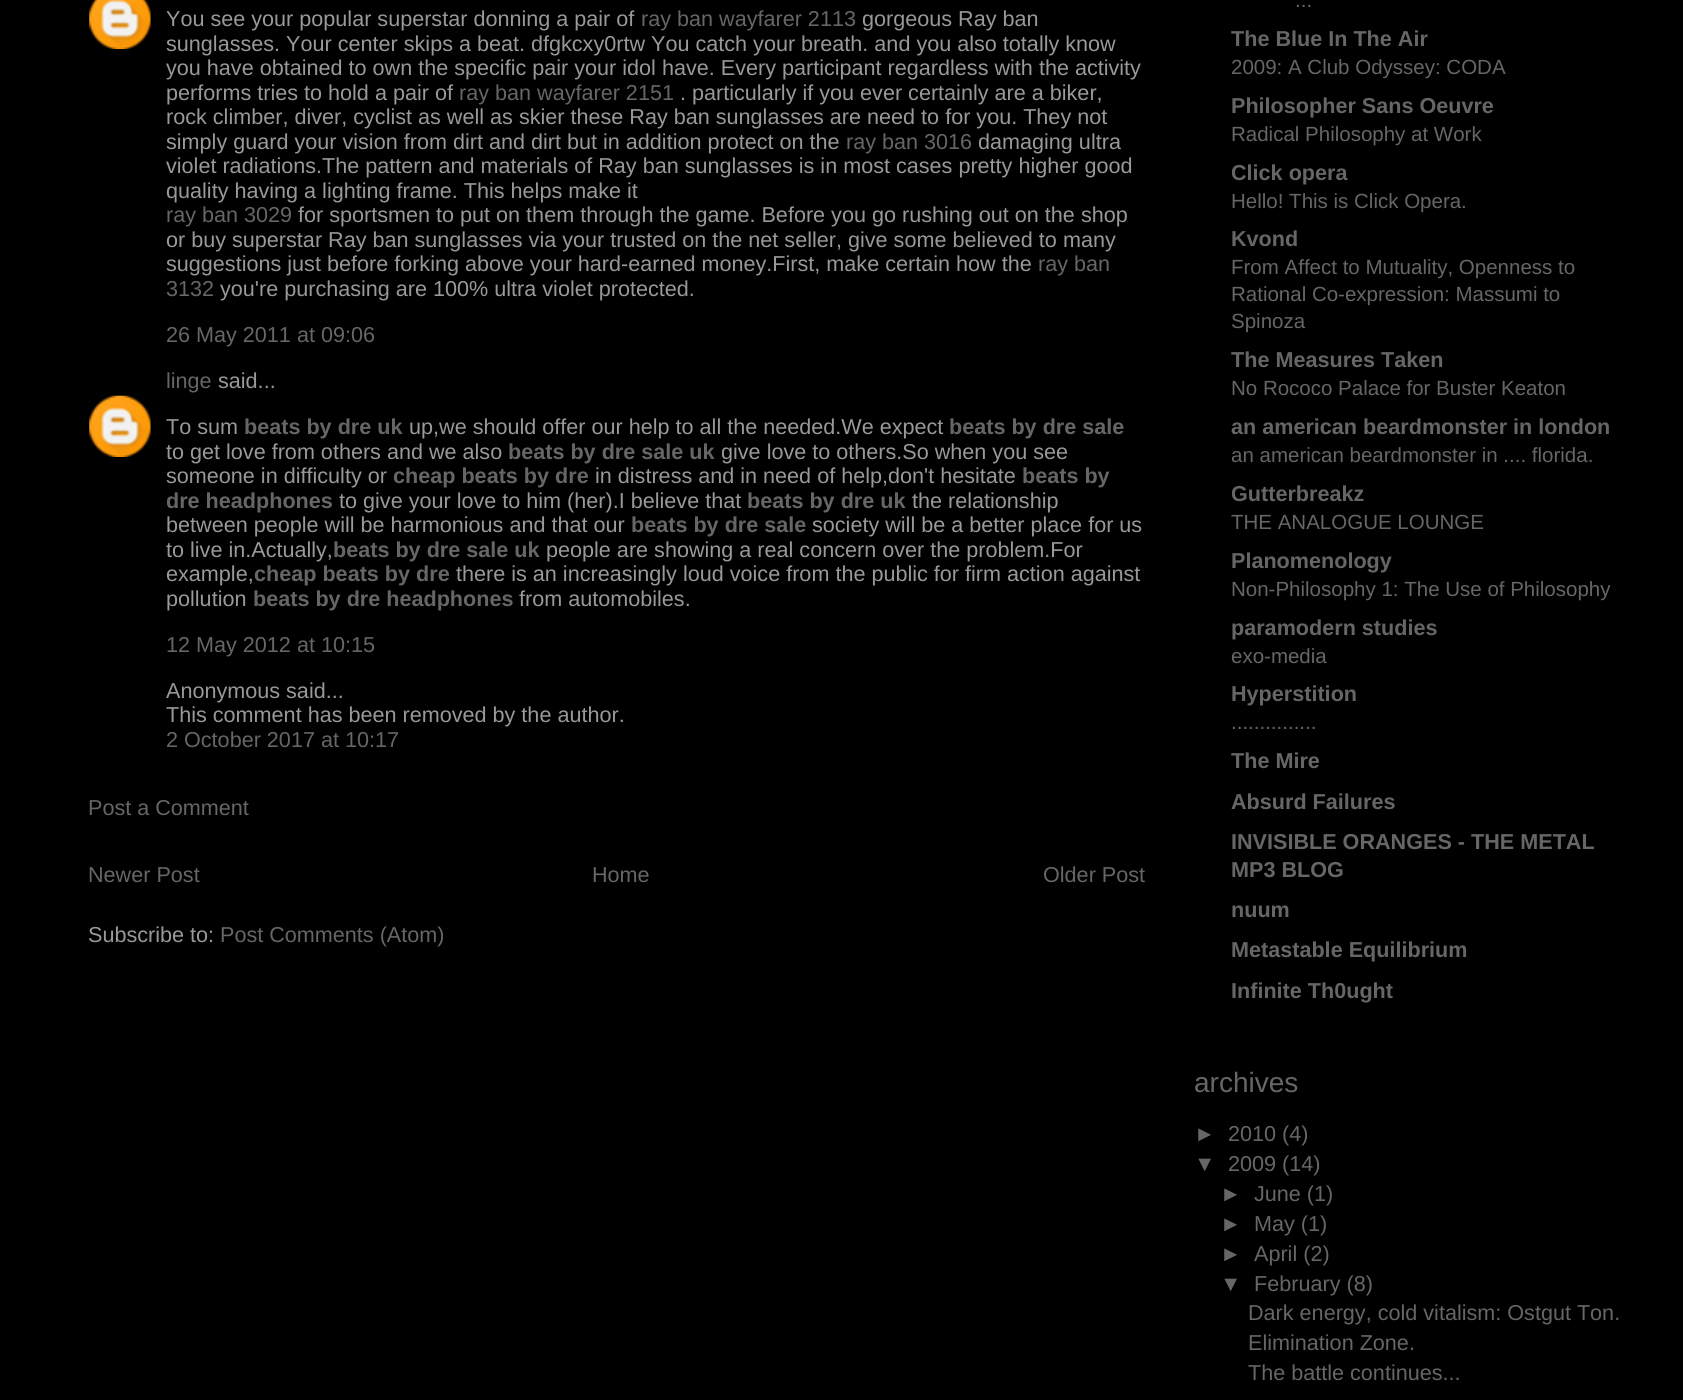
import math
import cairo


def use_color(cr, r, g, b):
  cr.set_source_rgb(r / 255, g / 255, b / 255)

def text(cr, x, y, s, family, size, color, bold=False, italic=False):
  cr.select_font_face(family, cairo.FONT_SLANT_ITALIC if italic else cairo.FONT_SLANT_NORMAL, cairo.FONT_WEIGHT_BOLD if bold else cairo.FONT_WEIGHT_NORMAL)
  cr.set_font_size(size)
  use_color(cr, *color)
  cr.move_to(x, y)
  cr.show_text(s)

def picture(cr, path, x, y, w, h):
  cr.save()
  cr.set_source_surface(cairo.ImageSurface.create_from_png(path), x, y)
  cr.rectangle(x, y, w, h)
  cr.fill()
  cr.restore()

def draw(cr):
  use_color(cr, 0, 0, 0)
  cr.paint()
  picture(cr, "img_01.png", 89, 0, 62, 50)
  picture(cr, "img_02.png", 89, 395, 62, 62)
  text(cr, 166, 26, "You see your popular superstar donning a pair of", "Liberation Sans", 21.6, (153, 153, 153))
  text(cr, 641, 26, "ray ban wayfarer 2113", "Liberation Sans", 21.6, (102, 102, 102))
  text(cr, 862, 26, "gorgeous Ray ban", "Liberation Sans", 21.6, (153, 153, 153))
  text(cr, 166, 51, "sunglasses. Your center skips a beat. dfgkcxy0rtw You catch your breath. and you also totally know", "Liberation Sans", 21.6, (153, 153, 153))
  text(cr, 166, 75, "you have obtained to own the specific pair your idol have. Every participant regardless with the activity", "Liberation Sans", 21.6, (153, 153, 153))
  text(cr, 166, 100, "performs tries to hold a pair of", "Liberation Sans", 21.6, (153, 153, 153))
  text(cr, 459, 100, "ray ban wayfarer 2151", "Liberation Sans", 21.6, (102, 102, 102))
  text(cr, 680, 100, ". particularly if you ever certainly are a biker,", "Liberation Sans", 21.6, (153, 153, 153))
  text(cr, 166, 124, "rock climber, diver, cyclist as well as skier these Ray ban sunglasses are need to for you. They not", "Liberation Sans", 21.6, (153, 153, 153))
  text(cr, 166, 149, "simply guard your vision from dirt and dirt but in addition protect on the", "Liberation Sans", 21.6, (153, 153, 153))
  text(cr, 846, 149, "ray ban 3016", "Liberation Sans", 21.6, (102, 102, 102))
  text(cr, 978, 149, "damaging ultra", "Liberation Sans", 21.6, (153, 153, 153))
  text(cr, 166, 173, "violet radiations.The pattern and materials of Ray ban sunglasses is in most cases pretty higher good", "Liberation Sans", 21.6, (153, 153, 153))
  text(cr, 166, 198, "quality having a lighting frame. This helps make it", "Liberation Sans", 21.6, (153, 153, 153))
  text(cr, 166, 222, "ray ban 3029", "Liberation Sans", 21.6, (102, 102, 102))
  text(cr, 298, 222, "for sportsmen to put on them through the game. Before you go rushing out on the shop", "Liberation Sans", 21.6, (153, 153, 153))
  text(cr, 166, 247, "or buy superstar Ray ban sunglasses via your trusted on the net seller, give some believed to many", "Liberation Sans", 21.6, (153, 153, 153))
  text(cr, 166, 271, "suggestions just before forking above your hard-earned money.First, make certain how the", "Liberation Sans", 21.6, (153, 153, 153))
  text(cr, 1038, 271, "ray ban", "Liberation Sans", 21.6, (102, 102, 102))
  text(cr, 166, 296, "3132", "Liberation Sans", 21.6, (102, 102, 102))
  text(cr, 220, 296, "you're purchasing are 100% ultra violet protected.", "Liberation Sans", 21.6, (153, 153, 153))
  text(cr, 166, 342, "26 May 2011 at 09:06", "Liberation Sans", 21.6, (102, 102, 102))
  text(cr, 166, 388, "linge", "Liberation Sans", 21.6, (102, 102, 102))
  text(cr, 218, 388, "said...", "Liberation Sans", 21.6, (153, 153, 153))
  text(cr, 166, 434, "To sum", "Liberation Sans", 21.6, (153, 153, 153))
  text(cr, 244, 434, "beats by dre uk", "Liberation Sans", 21.6, (102, 102, 102), bold=True)
  text(cr, 409, 434, "up,we should offer our help to all the needed.We expect", "Liberation Sans", 21.6, (153, 153, 153))
  text(cr, 949, 434, "beats by dre sale", "Liberation Sans", 21.6, (102, 102, 102), bold=True)
  text(cr, 166, 459, "to get love from others and we also", "Liberation Sans", 21.6, (153, 153, 153))
  text(cr, 508, 459, "beats by dre sale uk", "Liberation Sans", 21.6, (102, 102, 102), bold=True)
  text(cr, 721, 459, "give love to others.So when you see", "Liberation Sans", 21.6, (153, 153, 153))
  text(cr, 166, 483, "someone in difficulty or", "Liberation Sans", 21.6, (153, 153, 153))
  text(cr, 393, 483, "cheap beats by dre", "Liberation Sans", 21.6, (102, 102, 102), bold=True)
  text(cr, 595, 483, "in distress and in need of help,don't hesitate", "Liberation Sans", 21.6, (153, 153, 153))
  text(cr, 1022, 483, "beats by", "Liberation Sans", 21.6, (102, 102, 102), bold=True)
  text(cr, 166, 508, "dre headphones", "Liberation Sans", 21.6, (102, 102, 102), bold=True)
  text(cr, 339, 508, "to give your love to him (her).I believe that", "Liberation Sans", 21.6, (153, 153, 153))
  text(cr, 747, 508, "beats by dre uk", "Liberation Sans", 21.6, (102, 102, 102), bold=True)
  text(cr, 912, 508, "the relationship", "Liberation Sans", 21.6, (153, 153, 153))
  text(cr, 166, 532, "between people will be harmonious and that our", "Liberation Sans", 21.6, (153, 153, 153))
  text(cr, 631, 532, "beats by dre sale", "Liberation Sans", 21.6, (102, 102, 102), bold=True)
  text(cr, 812, 532, "society will be a better place for us", "Liberation Sans", 21.6, (153, 153, 153))
  text(cr, 166, 557, "to live in.Actually,", "Liberation Sans", 21.6, (153, 153, 153))
  text(cr, 333, 557, "beats by dre sale uk", "Liberation Sans", 21.6, (102, 102, 102), bold=True)
  text(cr, 546, 557, "people are showing a real concern over the problem.For", "Liberation Sans", 21.6, (153, 153, 153))
  text(cr, 166, 581, "example,", "Liberation Sans", 21.6, (153, 153, 153))
  text(cr, 254, 581, "cheap beats by dre", "Liberation Sans", 21.6, (102, 102, 102), bold=True)
  text(cr, 456, 581, "there is an increasingly loud voice from the public for firm action against", "Liberation Sans", 21.6, (153, 153, 153))
  text(cr, 166, 606, "pollution", "Liberation Sans", 21.6, (153, 153, 153))
  text(cr, 253, 606, "beats by dre headphones", "Liberation Sans", 21.6, (102, 102, 102), bold=True)
  text(cr, 519, 606, "from automobiles.", "Liberation Sans", 21.6, (153, 153, 153))
  text(cr, 166, 652, "12 May 2012 at 10:15", "Liberation Sans", 21.6, (102, 102, 102))
  text(cr, 166, 698, "Anonymous said...", "Liberation Sans", 21.6, (153, 153, 153))
  text(cr, 166, 722, "This comment has been removed by the author.", "Liberation Sans", 21.6, (153, 153, 153))
  text(cr, 166, 747, "2 October 2017 at 10:17", "Liberation Sans", 21.6, (102, 102, 102))
  text(cr, 88, 815, "Post a Comment", "Liberation Sans", 21.6, (102, 102, 102))
  text(cr, 88, 882, "Newer Post", "Liberation Sans", 21.6, (102, 102, 102))
  text(cr, 592, 882, "Home", "Liberation Sans", 21.6, (102, 102, 102))
  text(cr, 1043, 882, "Older Post", "Liberation Sans", 21.6, (102, 102, 102))
  text(cr, 88, 942, "Subscribe to:", "Liberation Sans", 21.6, (153, 153, 153))
  text(cr, 220, 942, "Post Comments (Atom)", "Liberation Sans", 21.6, (102, 102, 102))
  text(cr, 1295, 7, "...", "Liberation Sans", 20.5, (102, 102, 102))
  text(cr, 1231, 46, "The Blue In The Air", "Liberation Sans", 21.6, (102, 102, 102), bold=True)
  text(cr, 1231, 74, "2009: A Club Odyssey: CODA", "Liberation Sans", 20.5, (102, 102, 102))
  text(cr, 1231, 113, "Philosopher Sans Oeuvre", "Liberation Sans", 21.6, (102, 102, 102), bold=True)
  text(cr, 1231, 141, "Radical Philosophy at Work", "Liberation Sans", 20.5, (102, 102, 102))
  text(cr, 1231, 180, "Click opera", "Liberation Sans", 21.6, (102, 102, 102), bold=True)
  text(cr, 1231, 208, "Hello! This is Click Opera.", "Liberation Sans", 20.5, (102, 102, 102))
  text(cr, 1231, 246, "Kvond", "Liberation Sans", 21.6, (102, 102, 102), bold=True)
  text(cr, 1231, 274, "From Affect to Mutuality, Openness to", "Liberation Sans", 20.5, (102, 102, 102))
  text(cr, 1231, 301, "Rational Co-expression: Massumi to", "Liberation Sans", 20.5, (102, 102, 102))
  text(cr, 1231, 328, "Spinoza", "Liberation Sans", 20.5, (102, 102, 102))
  text(cr, 1231, 367, "The Measures Taken", "Liberation Sans", 21.6, (102, 102, 102), bold=True)
  text(cr, 1231, 395, "No Rococo Palace for Buster Keaton", "Liberation Sans", 20.5, (102, 102, 102))
  text(cr, 1231, 434, "an american beardmonster in london", "Liberation Sans", 21.6, (102, 102, 102), bold=True)
  text(cr, 1231, 462, "an american beardmonster in .... florida.", "Liberation Sans", 20.5, (102, 102, 102))
  text(cr, 1231, 501, "Gutterbreakz", "Liberation Sans", 21.6, (102, 102, 102), bold=True)
  text(cr, 1231, 529, "THE ANALOGUE LOUNGE", "Liberation Sans", 20.5, (102, 102, 102))
  text(cr, 1231, 568, "Planomenology", "Liberation Sans", 21.6, (102, 102, 102), bold=True)
  text(cr, 1231, 596, "Non-Philosophy 1: The Use of Philosophy", "Liberation Sans", 20.5, (102, 102, 102))
  text(cr, 1231, 635, "paramodern studies", "Liberation Sans", 21.6, (102, 102, 102), bold=True)
  text(cr, 1231, 663, "exo-media", "Liberation Sans", 20.5, (102, 102, 102))
  text(cr, 1231, 701, "Hyperstition", "Liberation Sans", 21.6, (102, 102, 102), bold=True)
  text(cr, 1231, 729, "...............", "Liberation Sans", 20.5, (102, 102, 102))
  text(cr, 1231, 768, "The Mire", "Liberation Sans", 21.6, (102, 102, 102), bold=True)
  text(cr, 1231, 809, "Absurd Failures", "Liberation Sans", 21.6, (102, 102, 102), bold=True)
  text(cr, 1231, 849, "INVISIBLE ORANGES - THE METAL", "Liberation Sans", 21.6, (102, 102, 102), bold=True)
  text(cr, 1231, 877, "MP3 BLOG", "Liberation Sans", 21.6, (102, 102, 102), bold=True)
  text(cr, 1231, 917, "nuum", "Liberation Sans", 21.6, (102, 102, 102), bold=True)
  text(cr, 1231, 957, "Metastable Equilibrium", "Liberation Sans", 21.6, (102, 102, 102), bold=True)
  text(cr, 1231, 998, "Infinite Th0ught", "Liberation Sans", 21.6, (102, 102, 102), bold=True)
  text(cr, 1194, 1092, "archives", "Liberation Sans", 28, (102, 102, 102))
  text(cr, 1194, 1141, "►", "Liberation Sans", 21.6, (102, 102, 102))
  text(cr, 1228, 1141, "2010 (4)", "Liberation Sans", 21.6, (102, 102, 102))
  text(cr, 1194, 1171, "▼", "Liberation Sans", 21.6, (102, 102, 102))
  text(cr, 1228, 1171, "2009 (14)", "Liberation Sans", 21.6, (102, 102, 102))
  text(cr, 1220, 1201, "►", "Liberation Sans", 21.6, (102, 102, 102))
  text(cr, 1254, 1201, "June (1)", "Liberation Sans", 21.6, (102, 102, 102))
  text(cr, 1220, 1231, "►", "Liberation Sans", 21.6, (102, 102, 102))
  text(cr, 1254, 1231, "May (1)", "Liberation Sans", 21.6, (102, 102, 102))
  text(cr, 1220, 1261, "►", "Liberation Sans", 21.6, (102, 102, 102))
  text(cr, 1254, 1261, "April (2)", "Liberation Sans", 21.6, (102, 102, 102))
  text(cr, 1220, 1291, "▼", "Liberation Sans", 21.6, (102, 102, 102))
  text(cr, 1254, 1291, "February (8)", "Liberation Sans", 21.6, (102, 102, 102))
  text(cr, 1248, 1320, "Dark energy, cold vitalism: Ostgut Ton.", "Liberation Sans", 21.6, (102, 102, 102))
  text(cr, 1248, 1350, "Elimination Zone.", "Liberation Sans", 21.6, (102, 102, 102))
  text(cr, 1248, 1380, "The battle continues...", "Liberation Sans", 21.6, (102, 102, 102))


surface = cairo.ImageSurface(cairo.FORMAT_RGB24, 1683, 1400)
cr = cairo.Context(surface)
options = cairo.FontOptions()
options.set_hint_metrics(cairo.HINT_METRICS_OFF)
options.set_hint_style(cairo.HINT_STYLE_NONE)
cr.set_font_options(options)
cr.set_miter_limit(4)
draw(cr)
surface.write_to_png("out.png")
